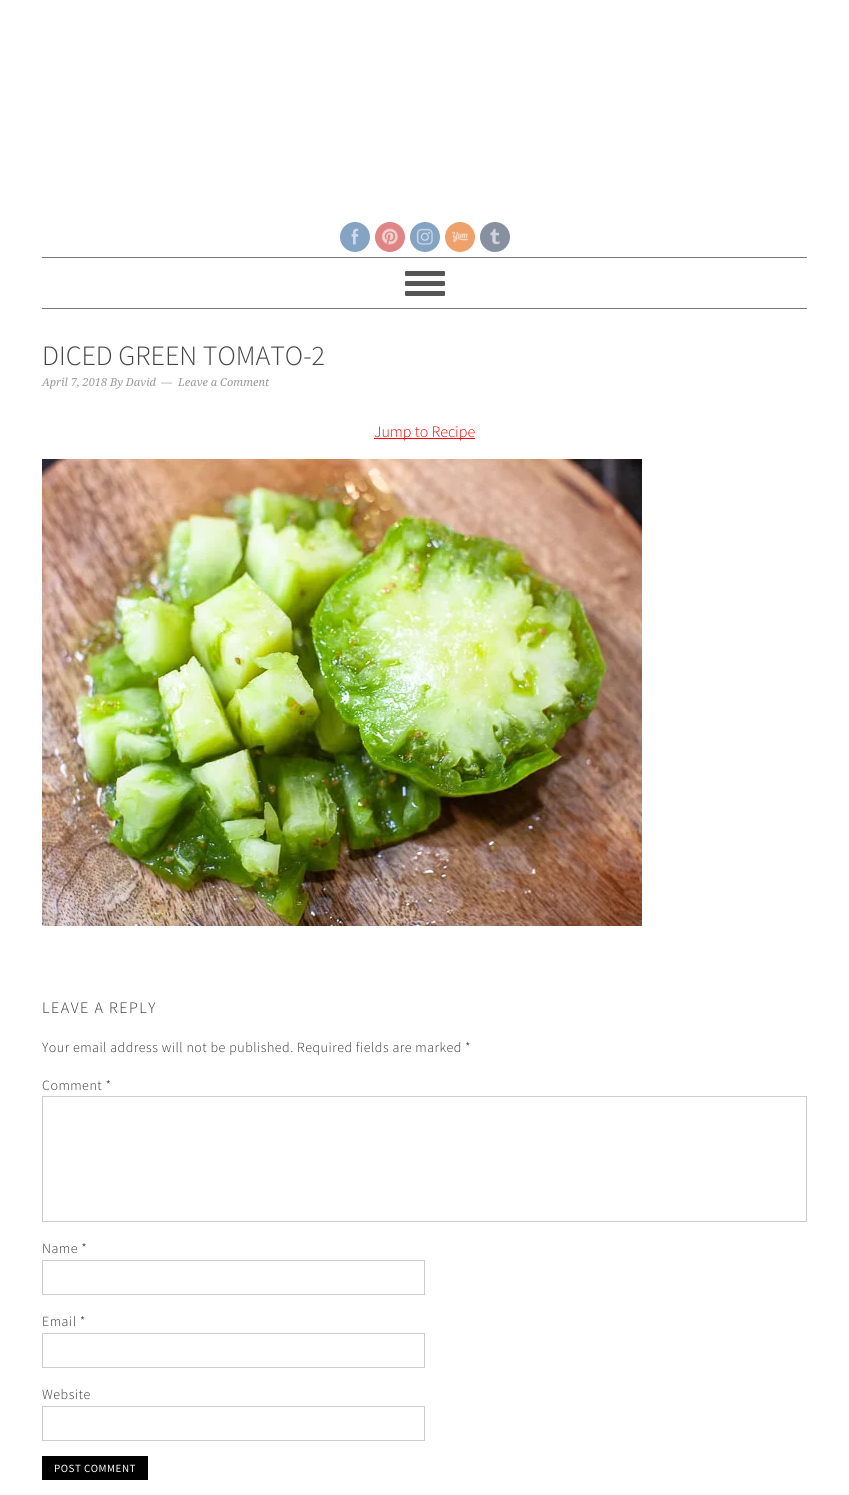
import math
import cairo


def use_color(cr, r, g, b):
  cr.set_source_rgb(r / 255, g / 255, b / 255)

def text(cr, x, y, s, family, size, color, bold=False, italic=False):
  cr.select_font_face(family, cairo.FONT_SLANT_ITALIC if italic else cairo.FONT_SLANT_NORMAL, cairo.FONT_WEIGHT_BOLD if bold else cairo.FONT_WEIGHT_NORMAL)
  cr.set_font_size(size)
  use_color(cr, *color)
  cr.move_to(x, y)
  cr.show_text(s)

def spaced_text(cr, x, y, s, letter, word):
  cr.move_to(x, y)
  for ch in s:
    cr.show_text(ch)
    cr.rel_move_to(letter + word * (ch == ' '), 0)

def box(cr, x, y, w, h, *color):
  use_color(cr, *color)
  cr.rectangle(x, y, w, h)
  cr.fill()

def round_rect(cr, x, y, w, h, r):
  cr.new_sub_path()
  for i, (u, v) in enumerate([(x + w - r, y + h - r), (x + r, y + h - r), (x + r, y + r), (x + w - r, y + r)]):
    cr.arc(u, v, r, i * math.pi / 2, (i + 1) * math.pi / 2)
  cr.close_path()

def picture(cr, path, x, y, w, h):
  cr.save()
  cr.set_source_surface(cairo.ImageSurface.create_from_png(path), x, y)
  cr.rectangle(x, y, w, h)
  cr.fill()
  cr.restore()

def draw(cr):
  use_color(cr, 255, 255, 255)
  cr.paint()
  use_color(cr, 133, 163, 194)
  cr.arc(355, 237, 15, 0, 2 * math.pi)
  cr.fill()
  picture(cr, "img_01.png", 351, 228, 8, 17)
  use_color(cr, 224, 133, 133)
  cr.arc(390, 237, 15, 0, 2 * math.pi)
  cr.fill()
  picture(cr, "img_02.png", 381, 228, 17, 17)
  use_color(cr, 133, 163, 194)
  cr.arc(425, 237, 15, 0, 2 * math.pi)
  cr.fill()
  picture(cr, "img_03.png", 416, 228, 17, 17)
  use_color(cr, 238, 161, 107)
  cr.arc(460, 237, 15, 0, 2 * math.pi)
  cr.fill()
  picture(cr, "img_04.png", 451, 231, 17, 11)
  use_color(cr, 134, 144, 159)
  cr.arc(495, 237, 15, 0, 2 * math.pi)
  cr.fill()
  picture(cr, "img_05.png", 490, 228, 10, 17)
  box(cr, 42, 257, 765, 1, 119, 119, 119)
  box(cr, 42, 308, 765, 1, 119, 119, 119)
  use_color(cr, 85, 85, 85)
  round_rect(cr, 405, 281, 40, 5, 1)
  cr.fill()
  round_rect(cr, 405, 271, 40, 5, 1)
  cr.fill()
  round_rect(cr, 405, 291, 40, 5, 1)
  cr.fill()
  box(cr, 374, 438, 101, 1, 255, 0, 0)
  picture(cr, "img_06.png", 42, 459, 600, 467)
  cr.rectangle(42.5, 1096.5, 764, 125)
  use_color(cr, 204, 204, 204)
  cr.set_line_width(1)
  cr.stroke()
  cr.rectangle(42.5, 1260.5, 382, 34)
  cr.stroke()
  cr.rectangle(42.5, 1333.5, 382, 34)
  cr.stroke()
  cr.rectangle(42.5, 1406.5, 382, 34)
  cr.stroke()
  box(cr, 42, 1456, 106, 24, 1, 1, 1)
  text(cr, 42, 365, "DICED GREEN TOMATO-2", "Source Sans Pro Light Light", 28, (68, 68, 68))
  text(cr, 42, 386, "April 7, 2018 By David", "Droid Serif", 11, (153, 153, 153), italic=True)
  text(cr, 161, 386, "—", "Droid Serif", 11, (153, 153, 153), italic=True)
  text(cr, 178, 386, "Leave a Comment", "Droid Serif", 11, (153, 153, 153), italic=True)
  text(cr, 374, 437, "Jump to Recipe", "Source Sans Pro Light Light", 16, (255, 0, 0))
  use_color(cr, 51, 51, 51)
  spaced_text(cr, 42, 1013, "LEAVE A REPLY", 1.5, 0)
  cr.set_font_size(14)
  spaced_text(cr, 42, 1052, "Your email address will not be published. Required fields are marked *", 0.5, 0)
  spaced_text(cr, 42, 1090, "Comment *", 0.5, 0)
  spaced_text(cr, 42, 1253, "Name *", 0.5, 0)
  spaced_text(cr, 42, 1326, "Email *", 0.5, 0)
  spaced_text(cr, 42, 1399, "Website", 0.5, 0)
  cr.select_font_face("Source Sans Pro")
  cr.set_font_size(11)
  use_color(cr, 255, 255, 255)
  spaced_text(cr, 54, 1472, "POST COMMENT", 0.5, 0)


surface = cairo.ImageSurface(cairo.FORMAT_RGB24, 849, 1495)
cr = cairo.Context(surface)
options = cairo.FontOptions()
options.set_hint_metrics(cairo.HINT_METRICS_OFF)
options.set_hint_style(cairo.HINT_STYLE_NONE)
cr.set_font_options(options)
cr.set_miter_limit(4)
draw(cr)
surface.write_to_png("out.png")
